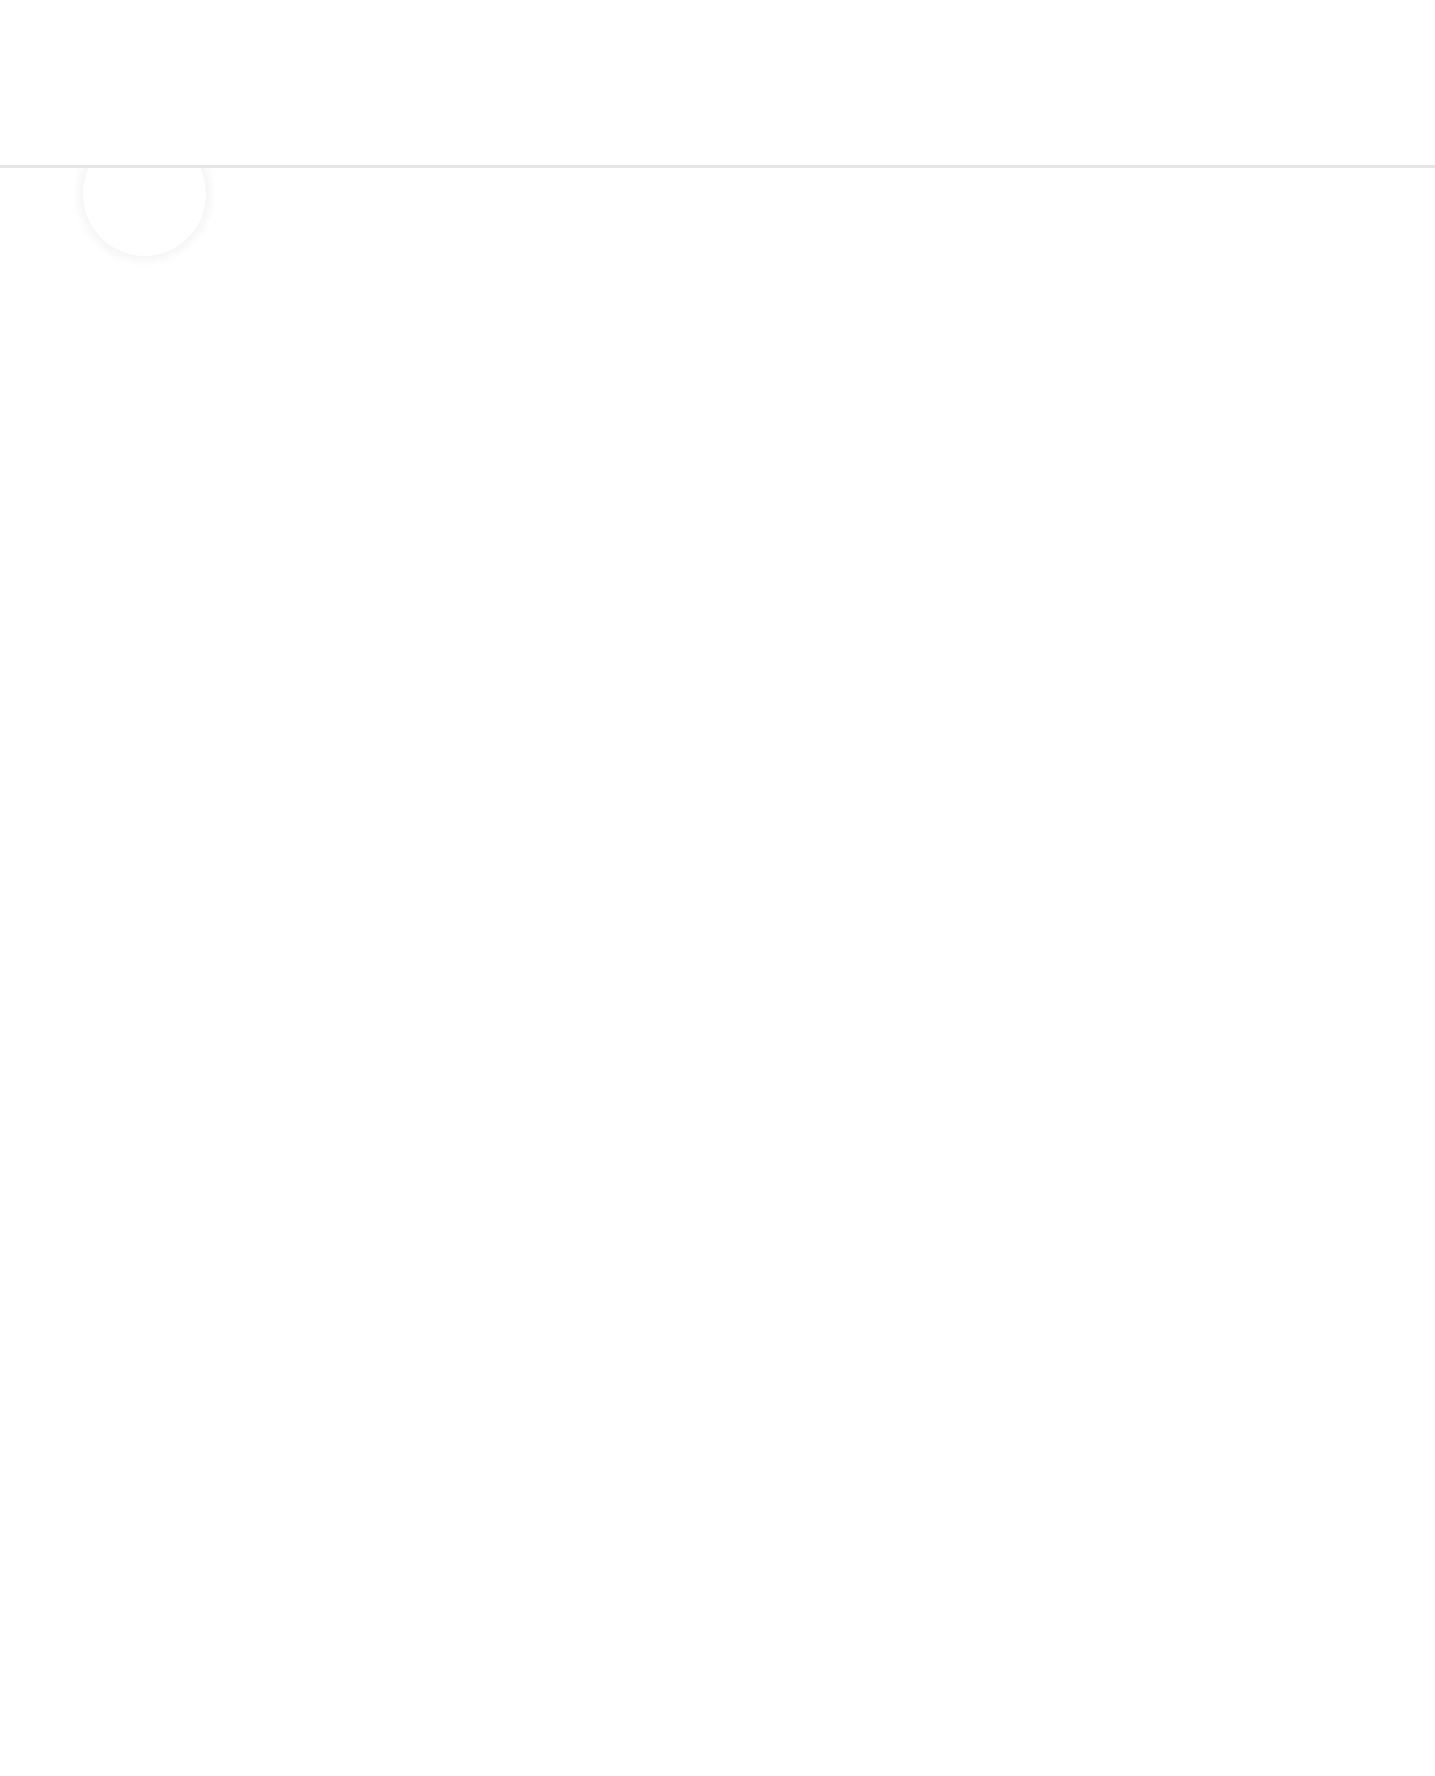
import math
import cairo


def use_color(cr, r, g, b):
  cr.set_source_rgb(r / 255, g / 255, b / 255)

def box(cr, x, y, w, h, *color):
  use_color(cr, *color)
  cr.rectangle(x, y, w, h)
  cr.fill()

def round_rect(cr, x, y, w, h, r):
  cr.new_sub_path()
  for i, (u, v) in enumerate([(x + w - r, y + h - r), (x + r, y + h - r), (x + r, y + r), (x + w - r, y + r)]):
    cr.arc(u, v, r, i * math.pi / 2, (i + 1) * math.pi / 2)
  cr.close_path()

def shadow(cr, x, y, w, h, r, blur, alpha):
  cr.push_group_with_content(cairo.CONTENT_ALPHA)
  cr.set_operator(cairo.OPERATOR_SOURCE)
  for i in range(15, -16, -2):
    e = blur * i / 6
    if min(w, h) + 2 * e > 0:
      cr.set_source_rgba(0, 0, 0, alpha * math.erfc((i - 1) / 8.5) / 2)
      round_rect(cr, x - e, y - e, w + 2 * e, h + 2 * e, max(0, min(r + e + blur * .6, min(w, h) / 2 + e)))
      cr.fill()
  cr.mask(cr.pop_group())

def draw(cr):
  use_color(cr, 255, 255, 255)
  cr.paint()
  use_color(cr, 0, 0, 0)
  shadow(cr, 83, 132, 123, 124, 61.5, 7, 0.08)
  use_color(cr, 255, 255, 255)
  round_rect(cr, 83, 132, 123, 124, 61.5)
  cr.fill()
  box(cr, 82, 124, 125, 41, 255, 255, 255)
  box(cr, 0, 165, 1435, 3, 230, 230, 230)


surface = cairo.ImageSurface(cairo.FORMAT_RGB24, 1435, 1776)
cr = cairo.Context(surface)
options = cairo.FontOptions()
options.set_hint_metrics(cairo.HINT_METRICS_OFF)
options.set_hint_style(cairo.HINT_STYLE_NONE)
cr.set_font_options(options)
cr.set_miter_limit(4)
draw(cr)
surface.write_to_png("out.png")
